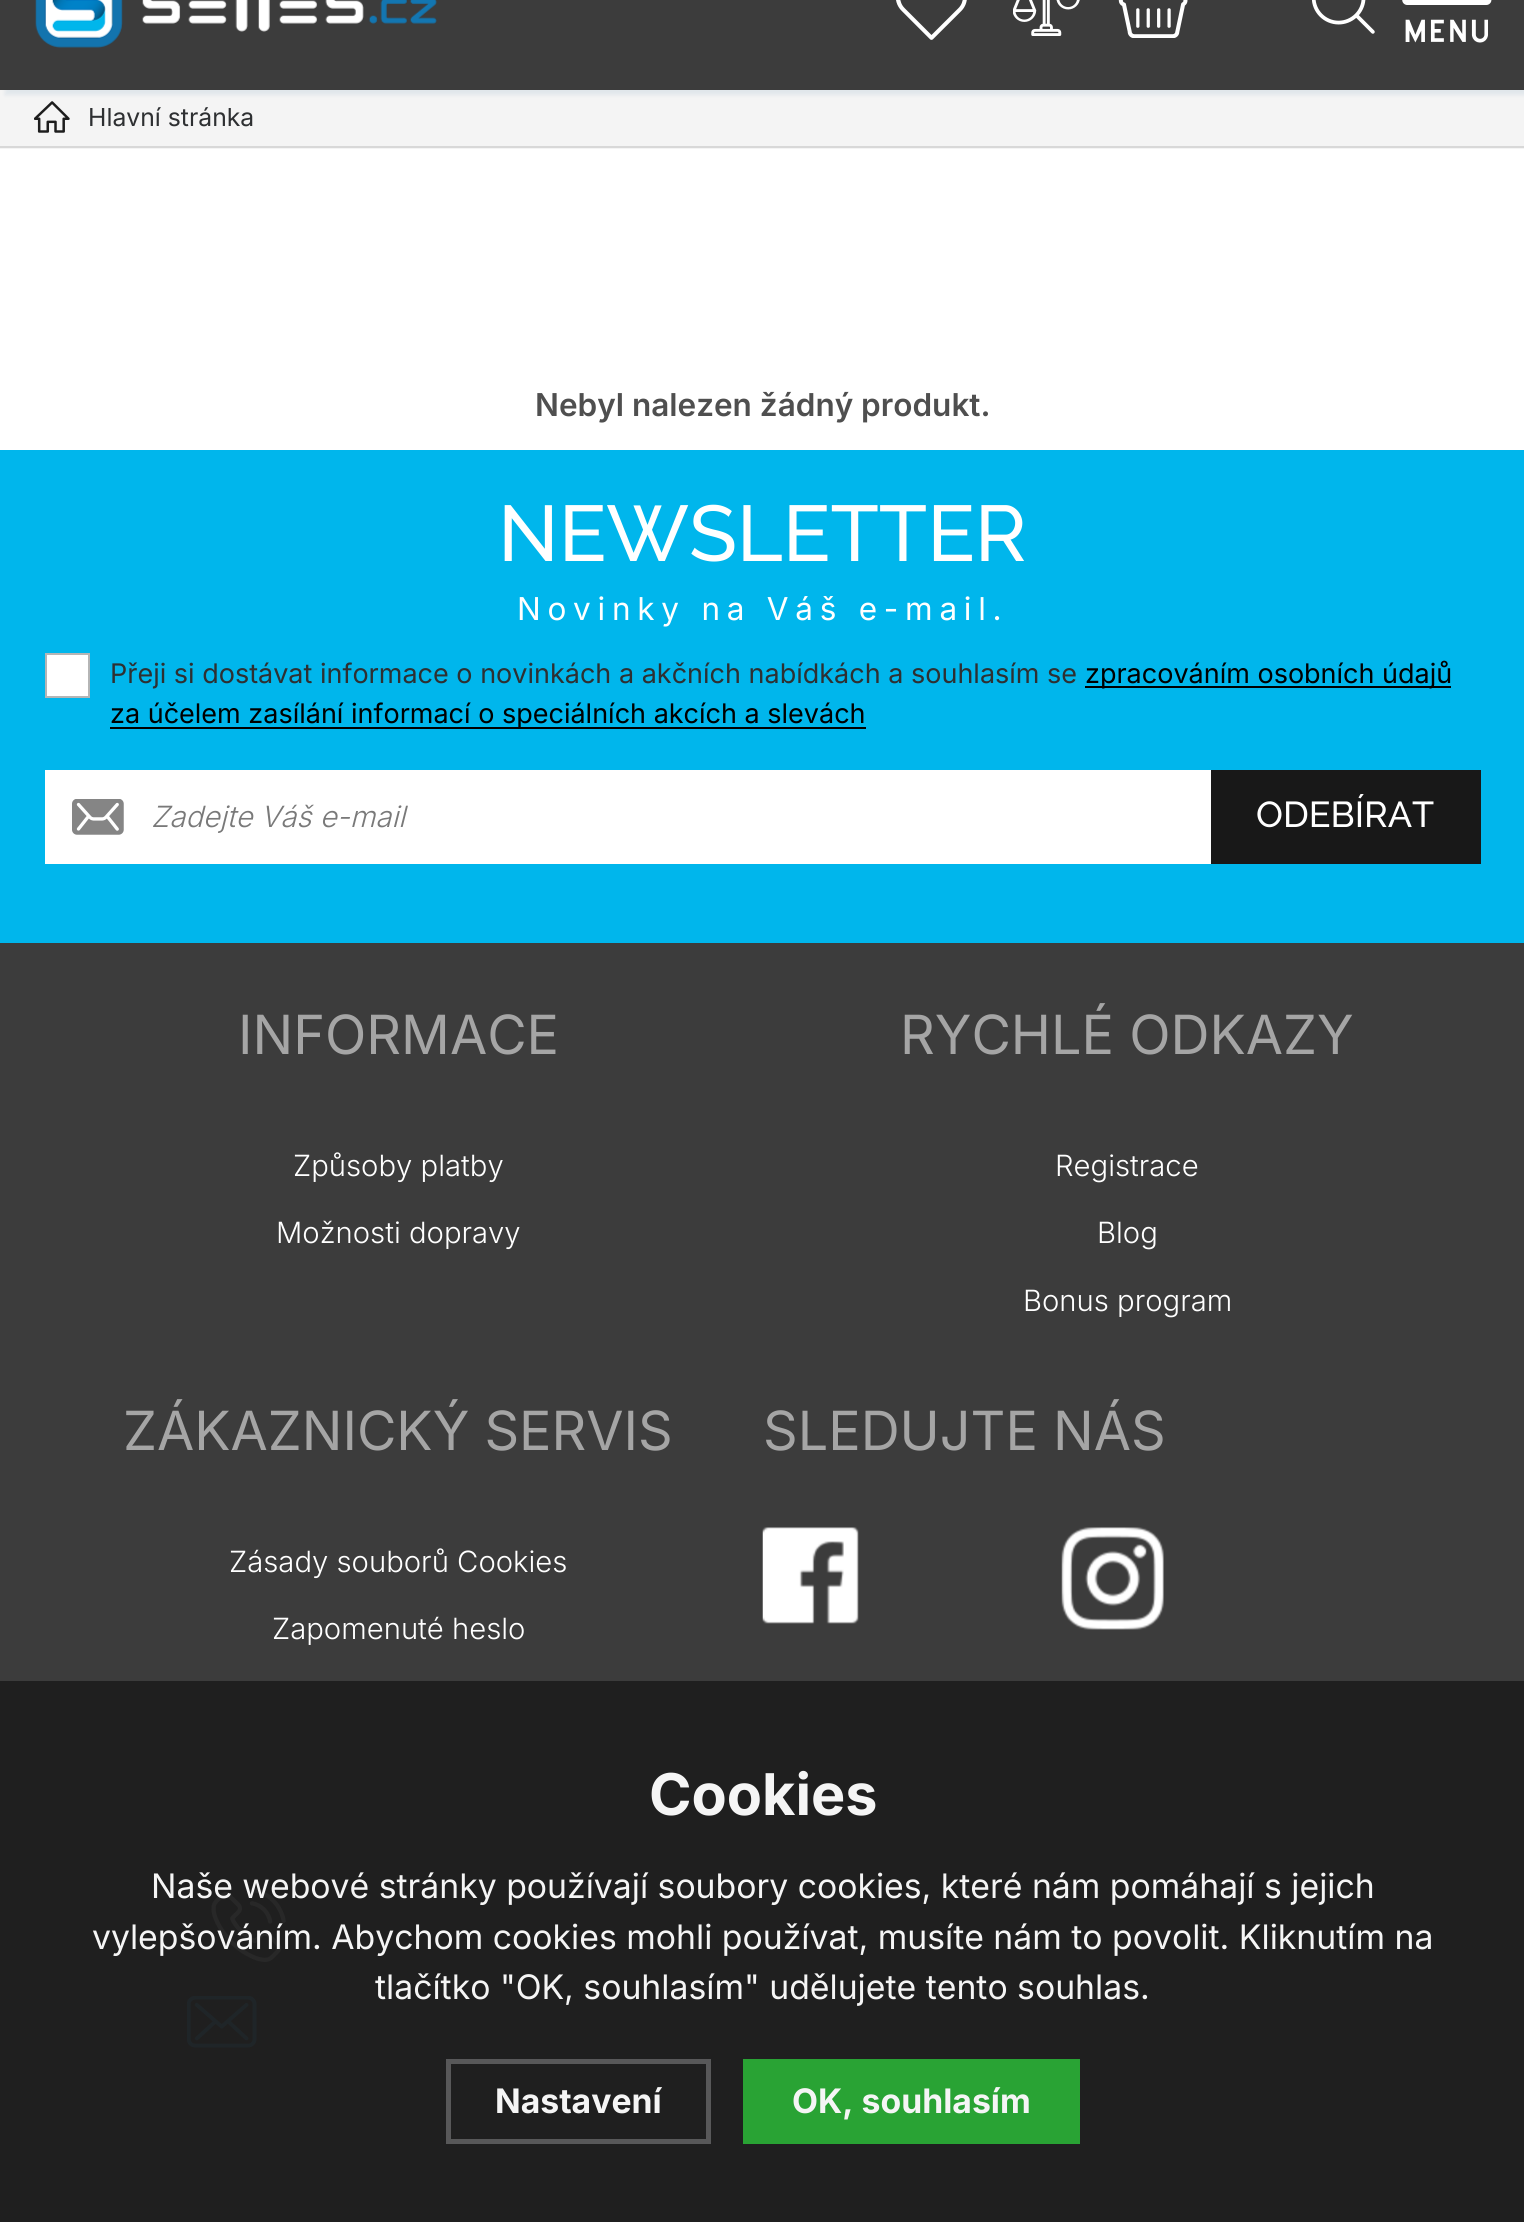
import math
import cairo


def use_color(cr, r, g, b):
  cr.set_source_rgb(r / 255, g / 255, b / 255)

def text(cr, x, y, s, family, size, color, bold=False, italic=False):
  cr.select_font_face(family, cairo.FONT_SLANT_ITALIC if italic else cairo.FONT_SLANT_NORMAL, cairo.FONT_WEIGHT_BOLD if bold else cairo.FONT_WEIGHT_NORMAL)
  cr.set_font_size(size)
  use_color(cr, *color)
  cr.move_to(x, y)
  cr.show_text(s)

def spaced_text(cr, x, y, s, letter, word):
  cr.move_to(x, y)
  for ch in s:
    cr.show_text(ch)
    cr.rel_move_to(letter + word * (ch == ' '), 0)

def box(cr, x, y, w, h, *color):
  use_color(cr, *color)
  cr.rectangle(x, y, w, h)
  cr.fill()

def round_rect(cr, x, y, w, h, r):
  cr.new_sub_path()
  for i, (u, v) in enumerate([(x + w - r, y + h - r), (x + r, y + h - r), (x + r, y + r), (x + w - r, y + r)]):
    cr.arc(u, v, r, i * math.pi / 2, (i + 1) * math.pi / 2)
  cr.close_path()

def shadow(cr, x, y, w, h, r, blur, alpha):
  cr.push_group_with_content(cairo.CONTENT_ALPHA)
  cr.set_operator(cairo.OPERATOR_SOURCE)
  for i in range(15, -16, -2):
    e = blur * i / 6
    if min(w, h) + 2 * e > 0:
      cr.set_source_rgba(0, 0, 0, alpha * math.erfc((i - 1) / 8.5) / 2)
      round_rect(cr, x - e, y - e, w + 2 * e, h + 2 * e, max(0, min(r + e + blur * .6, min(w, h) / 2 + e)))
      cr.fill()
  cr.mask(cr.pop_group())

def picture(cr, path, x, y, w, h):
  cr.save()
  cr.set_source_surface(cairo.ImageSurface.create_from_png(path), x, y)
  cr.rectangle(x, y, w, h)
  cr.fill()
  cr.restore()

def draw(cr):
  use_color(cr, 255, 255, 255)
  cr.paint()
  box(cr, 0, 90, 1524, 59, 244, 244, 244)
  picture(cr, "img_07.png", 34, 101, 36, 32)
  use_color(cr, 0, 74, 129)
  shadow(cr, 5, -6, 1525, 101, 0, 2, 0.08)
  box(cr, 0, 0, 1524, 90, 60, 60, 60)
  picture(cr, "img_01.png", 35, 0, 402, 48)
  picture(cr, "img_02.png", 896, 0, 71, 40)
  picture(cr, "img_03.png", 1013, 0, 67, 36)
  picture(cr, "img_04.png", 1118, 0, 70, 38)
  picture(cr, "img_05.png", 1312, 0, 63, 34)
  picture(cr, "img_06.png", 1402, 0, 90, 43)
  box(cr, 0, 146, 1524, 2, 216, 216, 216)
  box(cr, 0, 943, 1524, 738, 60, 60, 60)
  box(cr, 0, 1681, 1524, 541, 31, 31, 31)
  box(cr, 0, 450, 1524, 493, 0, 182, 236)
  use_color(cr, 255, 255, 255)
  cr.rectangle(46, 654, 43, 43)
  cr.fill_preserve()
  use_color(cr, 181, 181, 181)
  cr.stroke()
  box(cr, 1085, 686, 366, 2, 0, 0, 0)
  box(cr, 110, 727, 756, 2, 0, 0, 0)
  box(cr, 45, 770, 1166, 94, 255, 255, 255)
  picture(cr, "img_08.png", 72, 799, 52, 36)
  box(cr, 1211, 770, 270, 94, 24, 24, 24)
  picture(cr, "img_09.png", 762, 1527, 97, 97)
  picture(cr, "img_10.png", 1061, 1527, 103, 103)
  picture(cr, "img_11.png", 211, 1888, 75, 74)
  picture(cr, "img_12.png", 187, 1996, 70, 52)
  cr.rectangle(448.5, 2061.5, 260, 80)
  cr.set_source_rgba(0.361, 0.361, 0.365, 0.95)
  cr.set_line_width(5)
  cr.stroke()
  box(cr, 743, 2059, 337, 85, 41, 163, 52)
  text(cr, 88, 126, "Hlavní stránka", "Inter", 24.75, (46, 48, 50))
  text(cr, 535, 416, "Nebyl nalezen žádný produkt.", "Inter SemiBold", 31.5, (79, 79, 79))
  text(cr, 498, 561, "NEWSLETTER", "Raleway Medium", 78.75, (255, 255, 255))
  cr.select_font_face("Inter")
  cr.set_font_size(31.5)
  spaced_text(cr, 517, 620, "Novinky na Váš e-mail.", 6.75, 0)
  text(cr, 110, 683, "Přeji si dostávat informace o novinkách a akčních nabídkách a souhlasím se", "Inter", 27, (46, 48, 50))
  text(cr, 1085, 683, "zpracováním osobních údajů", "Inter", 27, (0, 0, 0))
  text(cr, 110, 723, "za účelem zasílání informací o speciálních akcích a slevách", "Inter", 27, (0, 0, 0))
  text(cr, 151, 827, "Zadejte Váš e-mail", "Inter Light", 29.25, (121, 121, 121), italic=True)
  text(cr, 1256, 827, "ODEBÍRAT", "Raleway Medium", 36, (255, 255, 255))
  text(cr, 238, 1054, "INFORMACE", "Inter", 54, (165, 165, 165))
  text(cr, 293, 1176, "Způsoby platby", "Inter Light", 29.25, (255, 255, 255))
  text(cr, 276, 1243, "Možnosti dopravy", "Inter Light", 29.25, (255, 255, 255))
  text(cr, 900, 1054, "RYCHLÉ ODKAZY", "Inter", 54, (165, 165, 165))
  text(cr, 1055, 1176, "Registrace", "Inter Light", 29.25, (255, 255, 255))
  text(cr, 1097, 1243, "Blog", "Inter Light", 29.25, (255, 255, 255))
  text(cr, 1023, 1311, "Bonus program", "Inter Light", 29.25, (255, 255, 255))
  text(cr, 123, 1450, "ZÁKAZNICKÝ SERVIS", "Inter", 54, (165, 165, 165))
  text(cr, 229, 1572, "Zásady souborů Cookies", "Inter Light", 29.25, (255, 255, 255))
  text(cr, 272, 1639, "Zapomenuté heslo", "Inter Light", 29.25, (255, 255, 255))
  text(cr, 763, 1450, "SLEDUJTE NÁS", "Inter", 54, (165, 165, 165))
  text(cr, 649, 1815, "Cookies", "Inter", 57.5, (245, 245, 245), bold=True)
  text(cr, 151, 1898, "Naše webové stránky používají soubory cookies, které nám pomáhají s jejich", "Inter", 33.75, (245, 245, 245))
  text(cr, 92, 1949, "vylepšováním. Abychom cookies mohli používat, musíte nám to povolit. Kliknutím na", "Inter", 33.75, (245, 245, 245))
  text(cr, 375, 1999, "tlačítko \"OK, souhlasím\" udělujete tento souhlas.", "Inter", 33.75, (245, 245, 245))
  text(cr, 495, 2113, "Nastavení", "Inter", 33.75, (245, 245, 245), bold=True)
  text(cr, 792, 2113, "OK, souhlasím", "Inter", 33.75, (245, 245, 245), bold=True)


surface = cairo.ImageSurface(cairo.FORMAT_RGB24, 1524, 2222)
cr = cairo.Context(surface)
options = cairo.FontOptions()
options.set_hint_metrics(cairo.HINT_METRICS_OFF)
options.set_hint_style(cairo.HINT_STYLE_NONE)
cr.set_font_options(options)
cr.set_miter_limit(4)
draw(cr)
surface.write_to_png("out.png")
